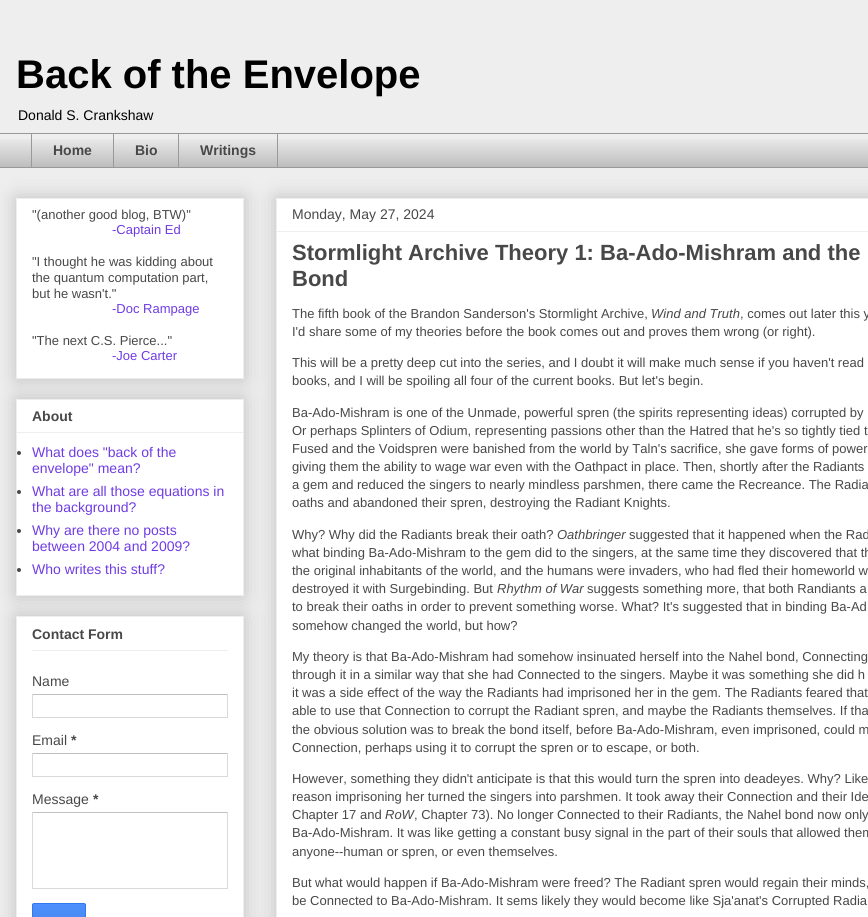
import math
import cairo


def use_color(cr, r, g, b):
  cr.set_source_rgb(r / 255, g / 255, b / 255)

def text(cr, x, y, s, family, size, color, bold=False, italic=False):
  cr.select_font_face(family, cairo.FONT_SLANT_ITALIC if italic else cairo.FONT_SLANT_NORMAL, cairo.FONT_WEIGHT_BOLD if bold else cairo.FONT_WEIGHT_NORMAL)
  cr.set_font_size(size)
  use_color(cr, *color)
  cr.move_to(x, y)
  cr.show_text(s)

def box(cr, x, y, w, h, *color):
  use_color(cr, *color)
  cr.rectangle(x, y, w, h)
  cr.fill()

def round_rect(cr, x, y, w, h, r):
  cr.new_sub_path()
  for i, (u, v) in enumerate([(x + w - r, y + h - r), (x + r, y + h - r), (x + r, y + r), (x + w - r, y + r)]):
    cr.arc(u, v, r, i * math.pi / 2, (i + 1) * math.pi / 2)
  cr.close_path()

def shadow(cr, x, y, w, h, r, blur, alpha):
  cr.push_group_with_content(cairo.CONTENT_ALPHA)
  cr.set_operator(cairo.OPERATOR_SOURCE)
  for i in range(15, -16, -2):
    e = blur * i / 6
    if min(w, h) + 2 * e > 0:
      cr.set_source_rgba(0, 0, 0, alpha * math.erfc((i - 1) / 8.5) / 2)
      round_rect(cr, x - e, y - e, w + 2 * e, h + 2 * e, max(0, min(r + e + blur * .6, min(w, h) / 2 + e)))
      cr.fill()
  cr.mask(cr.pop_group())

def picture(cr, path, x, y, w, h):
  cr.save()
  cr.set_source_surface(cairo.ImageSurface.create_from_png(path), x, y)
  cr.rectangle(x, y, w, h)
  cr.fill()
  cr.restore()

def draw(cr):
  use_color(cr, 238, 238, 238)
  cr.paint()
  picture(cr, "img_01.png", 0, 139, 868, 28)
  box(cr, 0, 133, 868, 1, 153, 153, 153)
  box(cr, 31, 133, 1, 35, 153, 153, 153)
  box(cr, 113, 133, 1, 35, 153, 153, 153)
  cr.rectangle(178.5, 133.5, 99, 34)
  cr.set_line_width(1)
  cr.stroke()
  box(cr, 0, 167, 868, 1, 153, 153, 153)
  use_color(cr, 0, 0, 0)
  shadow(cr, 16, 198, 228, 181, 0, 10, 0.2)
  use_color(cr, 255, 255, 255)
  cr.rectangle(16.5, 198.5, 227, 180)
  cr.fill_preserve()
  use_color(cr, 238, 238, 238)
  cr.stroke()
  use_color(cr, 0, 0, 0)
  shadow(cr, 16, 399, 228, 197, 0, 10, 0.2)
  use_color(cr, 255, 255, 255)
  cr.rectangle(16.5, 399.5, 227, 196)
  cr.fill_preserve()
  use_color(cr, 238, 238, 238)
  cr.stroke()
  box(cr, 17, 432, 226, 1, 238, 238, 238)
  use_color(cr, 72, 72, 72)
  cr.arc(19, 453, 2, 0, 2 * math.pi)
  cr.fill()
  cr.arc(19, 492, 2, 0, 2 * math.pi)
  cr.fill()
  cr.arc(19, 531, 2, 0, 2 * math.pi)
  cr.fill()
  cr.arc(19, 570, 2, 0, 2 * math.pi)
  cr.fill()
  use_color(cr, 0, 0, 0)
  shadow(cr, 16, 616, 228, 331, 0, 10, 0.2)
  use_color(cr, 255, 255, 255)
  cr.rectangle(16.5, 616.5, 227, 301)
  cr.fill_preserve()
  use_color(cr, 238, 238, 238)
  cr.stroke()
  box(cr, 32, 650, 196, 1, 238, 238, 238)
  box(cr, 32, 694, 196, 1, 192, 192, 192)
  box(cr, 227, 694, 1, 24, 217, 217, 217)
  box(cr, 32, 717, 196, 1, 217, 217, 217)
  box(cr, 32, 694, 1, 24, 217, 217, 217)
  box(cr, 32, 753, 196, 1, 192, 192, 192)
  box(cr, 227, 753, 1, 24, 217, 217, 217)
  box(cr, 32, 776, 196, 1, 217, 217, 217)
  box(cr, 32, 753, 1, 24, 217, 217, 217)
  box(cr, 32, 812, 196, 1, 192, 192, 192)
  box(cr, 227, 812, 1, 77, 217, 217, 217)
  box(cr, 32, 888, 196, 1, 217, 217, 217)
  box(cr, 32, 812, 1, 77, 217, 217, 217)
  gradient = cairo.LinearGradient(59, 904, 59, 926)
  gradient.add_color_stop_rgba(0, 0.302, 0.565, 0.996, 1)
  gradient.add_color_stop_rgba(1, 0.278, 0.529, 0.929, 1)
  cr.set_source(gradient)
  cr.rectangle(32, 904, 54, 13)
  cr.fill()
  round_rect(cr, 32.5, 903.5, 53, 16, 1.5)
  use_color(cr, 48, 121, 237)
  cr.stroke()
  use_color(cr, 0, 0, 0)
  shadow(cr, 276, 198, 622, 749, 0, 10, 0.2)
  use_color(cr, 255, 255, 255)
  cr.rectangle(276.5, 198.5, 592, 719)
  cr.fill_preserve()
  use_color(cr, 238, 238, 238)
  cr.stroke()
  box(cr, 277, 231, 591, 1, 238, 238, 238)
  text(cr, 16, 88, "Back of the Envelope", "Liberation Sans", 40, (0, 0, 0), bold=True)
  text(cr, 18, 120, "Donald S. Crankshaw", "Liberation Sans", 14, (0, 0, 0))
  text(cr, 53, 155, "Home", "Liberation Sans", 14, (72, 72, 72), bold=True)
  text(cr, 135, 155, "Bio", "Liberation Sans", 14, (72, 72, 72), bold=True)
  text(cr, 200, 155, "Writings", "Liberation Sans", 14, (72, 72, 72), bold=True)
  text(cr, 32, 219, "\"(another good blog, BTW)\"", "Liberation Sans", 13, (72, 72, 72))
  text(cr, 112, 234, "-Captain Ed", "Liberation Sans", 13, (111, 60, 227))
  text(cr, 32, 266, "\"I thought he was kidding about", "Liberation Sans", 13, (72, 72, 72))
  text(cr, 32, 282, "the quantum computation part,", "Liberation Sans", 13, (72, 72, 72))
  text(cr, 32, 298, "but he wasn't.\"", "Liberation Sans", 13, (72, 72, 72))
  text(cr, 112, 313, "-Doc Rampage", "Liberation Sans", 13, (111, 60, 227))
  text(cr, 32, 345, "\"The next C.S. Pierce...\"", "Liberation Sans", 13, (72, 72, 72))
  text(cr, 112, 360, "-Joe Carter", "Liberation Sans", 13, (111, 60, 227))
  text(cr, 32, 421, "About", "Liberation Sans", 14, (72, 72, 72), bold=True)
  text(cr, 32, 457, "What does \"back of the", "Liberation Sans", 14, (111, 60, 227))
  text(cr, 32, 473, "envelope\" mean?", "Liberation Sans", 14, (111, 60, 227))
  text(cr, 32, 496, "What are all those equations in", "Liberation Sans", 14, (111, 60, 227))
  text(cr, 32, 512, "the background?", "Liberation Sans", 14, (111, 60, 227))
  text(cr, 32, 535, "Why are there no posts", "Liberation Sans", 14, (111, 60, 227))
  text(cr, 32, 551, "between 2004 and 2009?", "Liberation Sans", 14, (111, 60, 227))
  text(cr, 32, 574, "Who writes this stuff?", "Liberation Sans", 14, (111, 60, 227))
  text(cr, 32, 639, "Contact Form", "Liberation Sans", 14, (72, 72, 72), bold=True)
  text(cr, 32, 686, "Name", "Liberation Sans", 14, (72, 72, 72))
  text(cr, 32, 745, "Email", "Liberation Sans", 14, (72, 72, 72))
  text(cr, 71, 745, "*", "Liberation Sans", 14, (72, 72, 72), bold=True)
  text(cr, 32, 804, "Message", "Liberation Sans", 14, (72, 72, 72))
  text(cr, 93, 804, "*", "Liberation Sans", 14, (72, 72, 72), bold=True)
  text(cr, 292, 219, "Monday, May 27, 2024", "Liberation Sans", 14, (72, 72, 72))
  text(cr, 292, 260, "Stormlight Archive Theory 1: Ba-Ado-Mishram and the", "Liberation Sans", 22, (72, 72, 72), bold=True)
  text(cr, 292, 286, "Bond", "Liberation Sans", 22, (72, 72, 72), bold=True)
  text(cr, 292, 318, "The fifth book of the Brandon Sanderson's Stormlight Archive,", "Liberation Sans", 13, (72, 72, 72))
  text(cr, 651, 318, "Wind and Truth", "Liberation Sans", 13, (72, 72, 72), italic=True)
  text(cr, 740, 318, ", comes out later this y", "Liberation Sans", 13, (72, 72, 72))
  text(cr, 292, 336, "I'd share some of my theories before the book comes out and proves them wrong (or right).", "Liberation Sans", 13, (72, 72, 72))
  text(cr, 292, 367, "This will be a pretty deep cut into the series, and I doubt it will make much sense if you haven't read", "Liberation Sans", 13, (72, 72, 72))
  text(cr, 292, 385, "books, and I will be spoiling all four of the current books. But let's begin.", "Liberation Sans", 13, (72, 72, 72))
  text(cr, 292, 417, "Ba-Ado-Mishram is one of the Unmade, powerful spren (the spirits representing ideas) corrupted by", "Liberation Sans", 13, (72, 72, 72))
  text(cr, 292, 435, "Or perhaps Splinters of Odium, representing passions other than the Hatred that he's so tightly tied t", "Liberation Sans", 13, (72, 72, 72))
  text(cr, 292, 453, "Fused and the Voidspren were banished from the world by Taln's sacrifice, she gave forms of power", "Liberation Sans", 13, (72, 72, 72))
  text(cr, 292, 471, "giving them the ability to wage war even with the Oathpact in place. Then, shortly after the Radiants", "Liberation Sans", 13, (72, 72, 72))
  text(cr, 292, 489, "a gem and reduced the singers to nearly mindless parshmen, there came the Recreance. The Radia", "Liberation Sans", 13, (72, 72, 72))
  text(cr, 292, 507, "oaths and abandoned their spren, destroying the Radiant Knights.", "Liberation Sans", 13, (72, 72, 72))
  text(cr, 292, 539, "Why? Why did the Radiants break their oath?", "Liberation Sans", 13, (72, 72, 72))
  text(cr, 557, 539, "Oathbringer", "Liberation Sans", 13, (72, 72, 72), italic=True)
  text(cr, 629, 539, "suggested that it happened when the Rad", "Liberation Sans", 13, (72, 72, 72))
  text(cr, 292, 557, "what binding Ba-Ado-Mishram to the gem did to the singers, at the same time they discovered that th", "Liberation Sans", 13, (72, 72, 72))
  text(cr, 292, 575, "the original inhabitants of the world, and the humans were invaders, who had fled their homeworld w", "Liberation Sans", 13, (72, 72, 72))
  text(cr, 292, 593, "destroyed it with Surgebinding. But", "Liberation Sans", 13, (72, 72, 72))
  text(cr, 497, 593, "Rhythm of War", "Liberation Sans", 13, (72, 72, 72), italic=True)
  text(cr, 587, 593, "suggests something more, that both Randiants a", "Liberation Sans", 13, (72, 72, 72))
  text(cr, 292, 611, "to break their oaths in order to prevent something worse. What? It's suggested that in binding Ba-Ad", "Liberation Sans", 13, (72, 72, 72))
  text(cr, 292, 630, "somehow changed the world, but how?", "Liberation Sans", 13, (72, 72, 72))
  text(cr, 292, 661, "My theory is that Ba-Ado-Mishram had somehow insinuated herself into the Nahel bond, Connecting", "Liberation Sans", 13, (72, 72, 72))
  text(cr, 292, 679, "through it in a similar way that she had Connected to the singers. Maybe it was something she did h", "Liberation Sans", 13, (72, 72, 72))
  text(cr, 292, 697, "it was a side effect of the way the Radiants had imprisoned her in the gem. The Radiants feared that", "Liberation Sans", 13, (72, 72, 72))
  text(cr, 292, 715, "able to use that Connection to corrupt the Radiant spren, and maybe the Radiants themselves. If tha", "Liberation Sans", 13, (72, 72, 72))
  text(cr, 292, 734, "the obvious solution was to break the bond itself, before Ba-Ado-Mishram, even imprisoned, could m", "Liberation Sans", 13, (72, 72, 72))
  text(cr, 292, 752, "Connection, perhaps using it to corrupt the spren or to escape, or both.", "Liberation Sans", 13, (72, 72, 72))
  text(cr, 292, 783, "However, something they didn't anticipate is that this would turn the spren into deadeyes. Why? Like", "Liberation Sans", 13, (72, 72, 72))
  text(cr, 292, 801, "reason imprisoning her turned the singers into parshmen. It took away their Connection and their Ide", "Liberation Sans", 13, (72, 72, 72))
  text(cr, 292, 819, "Chapter 17 and", "Liberation Sans", 13, (72, 72, 72))
  text(cr, 385, 819, "RoW", "Liberation Sans", 13, (72, 72, 72), italic=True)
  text(cr, 414, 819, ", Chapter 73). No longer Connected to their Radiants, the Nahel bond now only", "Liberation Sans", 13, (72, 72, 72))
  text(cr, 292, 837, "Ba-Ado-Mishram. It was like getting a constant busy signal in the part of their souls that allowed them", "Liberation Sans", 13, (72, 72, 72))
  text(cr, 292, 856, "anyone--human or spren, or even themselves.", "Liberation Sans", 13, (72, 72, 72))
  text(cr, 292, 887, "But what would happen if Ba-Ado-Mishram were freed? The Radiant spren would regain their minds,", "Liberation Sans", 13, (72, 72, 72))
  text(cr, 292, 905, "be Connected to Ba-Ado-Mishram. It sems likely they would become like Sja'anat's Corrupted Radia", "Liberation Sans", 13, (72, 72, 72))


surface = cairo.ImageSurface(cairo.FORMAT_RGB24, 868, 917)
cr = cairo.Context(surface)
options = cairo.FontOptions()
options.set_hint_metrics(cairo.HINT_METRICS_OFF)
options.set_hint_style(cairo.HINT_STYLE_NONE)
cr.set_font_options(options)
cr.set_miter_limit(4)
draw(cr)
surface.write_to_png("out.png")
